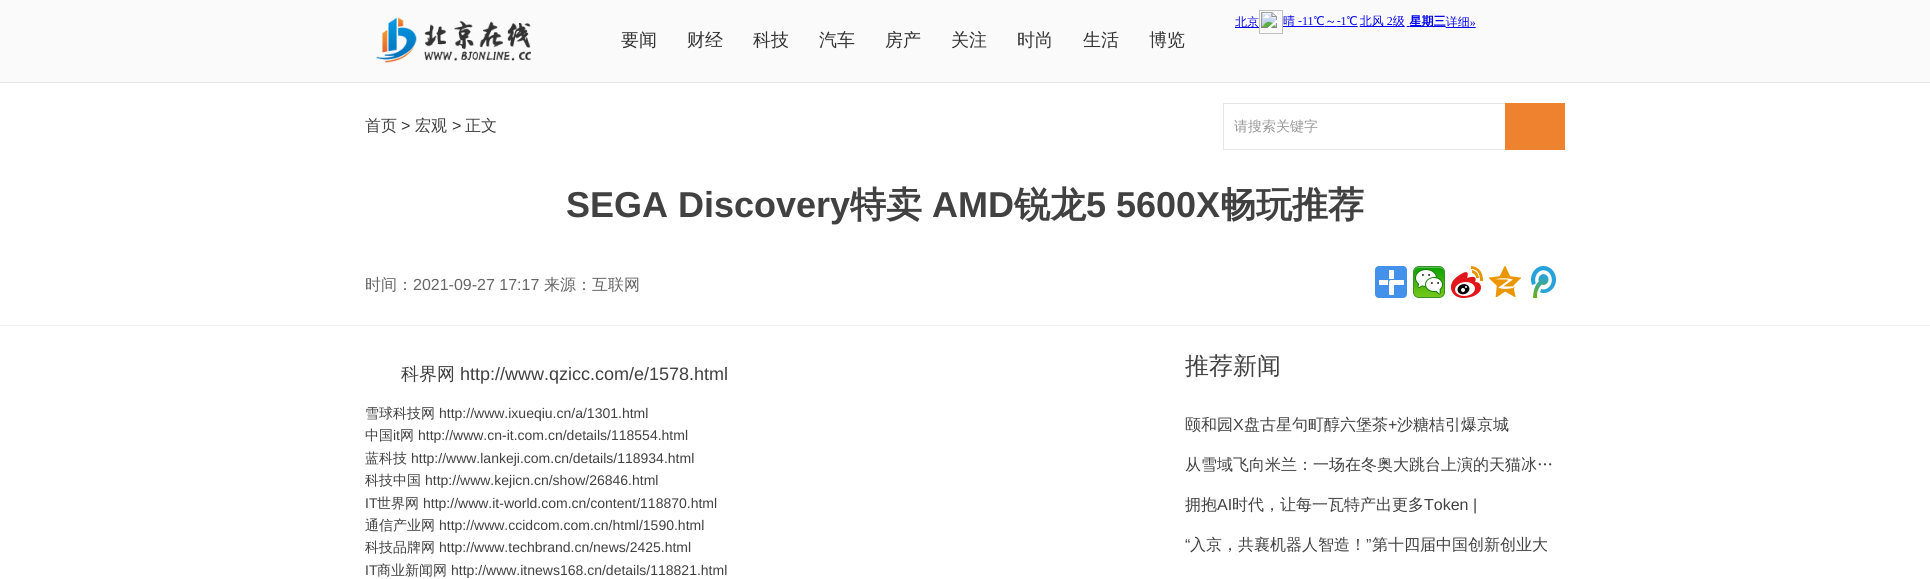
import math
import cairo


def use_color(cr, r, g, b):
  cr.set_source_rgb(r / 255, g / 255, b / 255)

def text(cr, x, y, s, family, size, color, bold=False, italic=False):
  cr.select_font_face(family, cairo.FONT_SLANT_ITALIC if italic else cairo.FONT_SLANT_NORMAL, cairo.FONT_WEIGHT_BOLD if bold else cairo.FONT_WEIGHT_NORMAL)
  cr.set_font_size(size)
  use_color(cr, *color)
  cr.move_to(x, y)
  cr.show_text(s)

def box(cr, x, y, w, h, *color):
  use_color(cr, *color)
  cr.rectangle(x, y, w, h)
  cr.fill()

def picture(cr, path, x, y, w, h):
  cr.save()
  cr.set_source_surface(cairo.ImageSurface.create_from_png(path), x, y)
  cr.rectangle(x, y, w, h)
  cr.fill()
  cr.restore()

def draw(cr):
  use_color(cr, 255, 255, 255)
  cr.paint()
  box(cr, 0, 0, 1930, 82, 250, 250, 250)
  box(cr, 0, 82, 1930, 1, 230, 230, 230)
  picture(cr, "img_01.png", 376, 17, 155, 46)
  picture(cr, "img_02.png", 1235, 10, 241, 24)
  cr.rectangle(1223.5, 103.5, 341, 46)
  use_color(cr, 229, 229, 229)
  cr.set_line_width(1)
  cr.stroke()
  box(cr, 1505, 103, 60, 47, 238, 130, 47)
  picture(cr, "img_03.png", 1375, 266, 32, 32)
  picture(cr, "img_04.png", 1413, 266, 32, 32)
  picture(cr, "img_05.png", 1451, 266, 32, 32)
  picture(cr, "img_06.png", 1489, 266, 32, 31)
  picture(cr, "img_07.png", 1531, 266, 25, 32)
  box(cr, 0, 325, 1930, 1, 238, 238, 238)
  text(cr, 621, 46, "要闻", "WenQuanYi Zen Hei Medium", 18, (51, 51, 51))
  text(cr, 687, 46, "财经", "WenQuanYi Zen Hei Medium", 18, (51, 51, 51))
  text(cr, 753, 46, "科技", "WenQuanYi Zen Hei Medium", 18, (51, 51, 51))
  text(cr, 819, 46, "汽车", "WenQuanYi Zen Hei Medium", 18, (51, 51, 51))
  text(cr, 885, 46, "房产", "WenQuanYi Zen Hei Medium", 18, (51, 51, 51))
  text(cr, 951, 46, "关注", "WenQuanYi Zen Hei Medium", 18, (51, 51, 51))
  text(cr, 1017, 46, "时尚", "WenQuanYi Zen Hei Medium", 18, (51, 51, 51))
  text(cr, 1083, 46, "生活", "WenQuanYi Zen Hei Medium", 18, (51, 51, 51))
  text(cr, 1149, 46, "博览", "WenQuanYi Zen Hei Medium", 18, (51, 51, 51))
  text(cr, 365, 131, "首页", "WenQuanYi Zen Hei Medium", 16, (65, 65, 65))
  text(cr, 401, 131, ">", "Liberation Sans", 16, (51, 51, 51))
  text(cr, 415, 131, "宏观", "WenQuanYi Zen Hei Medium", 16, (65, 65, 65))
  text(cr, 452, 131, ">", "Liberation Sans", 16, (51, 51, 51))
  text(cr, 465, 131, "正文", "WenQuanYi Zen Hei Medium", 16, (65, 65, 65))
  text(cr, 1234, 131, "请搜索关键字", "WenQuanYi Zen Hei Medium", 14, (153, 153, 153))
  text(cr, 566, 217, "SEGA Discovery", "Liberation Sans", 36, (65, 65, 65), bold=True)
  text(cr, 850, 217, "特卖", "WenQuanYi Zen Hei", 36, (65, 65, 65), bold=True)
  text(cr, 932, 217, "AMD", "Liberation Sans", 36, (65, 65, 65), bold=True)
  text(cr, 1014, 217, "锐龙", "WenQuanYi Zen Hei", 36, (65, 65, 65), bold=True)
  text(cr, 1086, 217, "5 5600X", "Liberation Sans", 36, (65, 65, 65), bold=True)
  text(cr, 1220, 217, "畅玩推荐", "WenQuanYi Zen Hei", 36, (65, 65, 65), bold=True)
  text(cr, 365, 290, "时间：", "WenQuanYi Zen Hei Medium", 16, (102, 102, 102))
  text(cr, 413, 290, "2021-09-27 17:17", "Liberation Sans", 16, (102, 102, 102))
  text(cr, 544, 290, "来源：互联网", "WenQuanYi Zen Hei Medium", 16, (102, 102, 102))
  text(cr, 401, 380, "科界网", "WenQuanYi Zen Hei Medium", 18, (65, 65, 65))
  text(cr, 460, 380, "http://www.qzicc.com/e/1578.html", "Liberation Sans", 18, (65, 65, 65))
  text(cr, 365, 418, "雪球科技网", "WenQuanYi Zen Hei Medium", 14, (65, 65, 65))
  text(cr, 439, 418, "http://www.ixueqiu.cn/a/1301.html", "Liberation Sans", 14, (65, 65, 65))
  text(cr, 365, 440, "中国", "WenQuanYi Zen Hei Medium", 14, (65, 65, 65))
  text(cr, 393, 440, "it", "Liberation Sans", 14, (65, 65, 65))
  text(cr, 400, 440, "网", "WenQuanYi Zen Hei Medium", 14, (65, 65, 65))
  text(cr, 418, 440, "http://www.cn-it.com.cn/details/118554.html", "Liberation Sans", 14, (65, 65, 65))
  text(cr, 365, 463, "蓝科技", "WenQuanYi Zen Hei Medium", 14, (65, 65, 65))
  text(cr, 411, 463, "http://www.lankeji.com.cn/details/118934.html", "Liberation Sans", 14, (65, 65, 65))
  text(cr, 365, 485, "科技中国", "WenQuanYi Zen Hei Medium", 14, (65, 65, 65))
  text(cr, 425, 485, "http://www.kejicn.cn/show/26846.html", "Liberation Sans", 14, (65, 65, 65))
  text(cr, 365, 508, "IT", "Liberation Sans", 14, (65, 65, 65))
  text(cr, 377, 508, "世界网", "WenQuanYi Zen Hei Medium", 14, (65, 65, 65))
  text(cr, 423, 508, "http://www.it-world.com.cn/content/118870.html", "Liberation Sans", 14, (65, 65, 65))
  text(cr, 365, 530, "通信产业网", "WenQuanYi Zen Hei Medium", 14, (65, 65, 65))
  text(cr, 439, 530, "http://www.ccidcom.com.cn/html/1590.html", "Liberation Sans", 14, (65, 65, 65))
  text(cr, 365, 552, "科技品牌网", "WenQuanYi Zen Hei Medium", 14, (65, 65, 65))
  text(cr, 439, 552, "http://www.techbrand.cn/news/2425.html", "Liberation Sans", 14, (65, 65, 65))
  text(cr, 365, 575, "IT", "Liberation Sans", 14, (65, 65, 65))
  text(cr, 377, 575, "商业新闻网", "WenQuanYi Zen Hei Medium", 14, (65, 65, 65))
  text(cr, 451, 575, "http://www.itnews168.cn/details/118821.html", "Liberation Sans", 14, (65, 65, 65))
  text(cr, 1185, 374, "推荐新闻", "WenQuanYi Zen Hei Medium", 24, (65, 65, 65))
  text(cr, 1185, 430, "颐和园", "WenQuanYi Zen Hei Medium", 16, (65, 65, 65))
  text(cr, 1233, 430, "X", "Liberation Sans", 16, (65, 65, 65))
  text(cr, 1244, 430, "盘古星句町醇六堡茶", "WenQuanYi Zen Hei Medium", 16, (65, 65, 65))
  text(cr, 1388, 430, "+", "Liberation Sans", 16, (65, 65, 65))
  text(cr, 1397, 430, "沙糖桔引爆京城", "WenQuanYi Zen Hei Medium", 16, (65, 65, 65))
  text(cr, 1185, 470, "从雪域飞向米兰：一场在冬奥大跳台上演的天猫冰…", "WenQuanYi Zen Hei Medium", 16, (65, 65, 65))
  text(cr, 1185, 510, "拥抱", "WenQuanYi Zen Hei Medium", 16, (65, 65, 65))
  text(cr, 1217, 510, "AI", "Liberation Sans", 16, (65, 65, 65))
  text(cr, 1232, 510, "时代，让每一瓦特产出更多", "WenQuanYi Zen Hei Medium", 16, (65, 65, 65))
  text(cr, 1424, 510, "Token |", "Liberation Sans", 16, (65, 65, 65))
  text(cr, 1185, 550, "“", "Liberation Sans", 16, (65, 65, 65))
  text(cr, 1190, 550, "入京，共襄机器人智造！", "WenQuanYi Zen Hei Medium", 16, (65, 65, 65))
  text(cr, 1366, 550, "”", "Liberation Sans", 16, (65, 65, 65))
  text(cr, 1372, 550, "第十四届中国创新创业大", "WenQuanYi Zen Hei Medium", 16, (65, 65, 65))


surface = cairo.ImageSurface(cairo.FORMAT_RGB24, 1930, 579)
cr = cairo.Context(surface)
options = cairo.FontOptions()
options.set_hint_metrics(cairo.HINT_METRICS_OFF)
options.set_hint_style(cairo.HINT_STYLE_NONE)
cr.set_font_options(options)
cr.set_miter_limit(4)
draw(cr)
surface.write_to_png("out.png")
